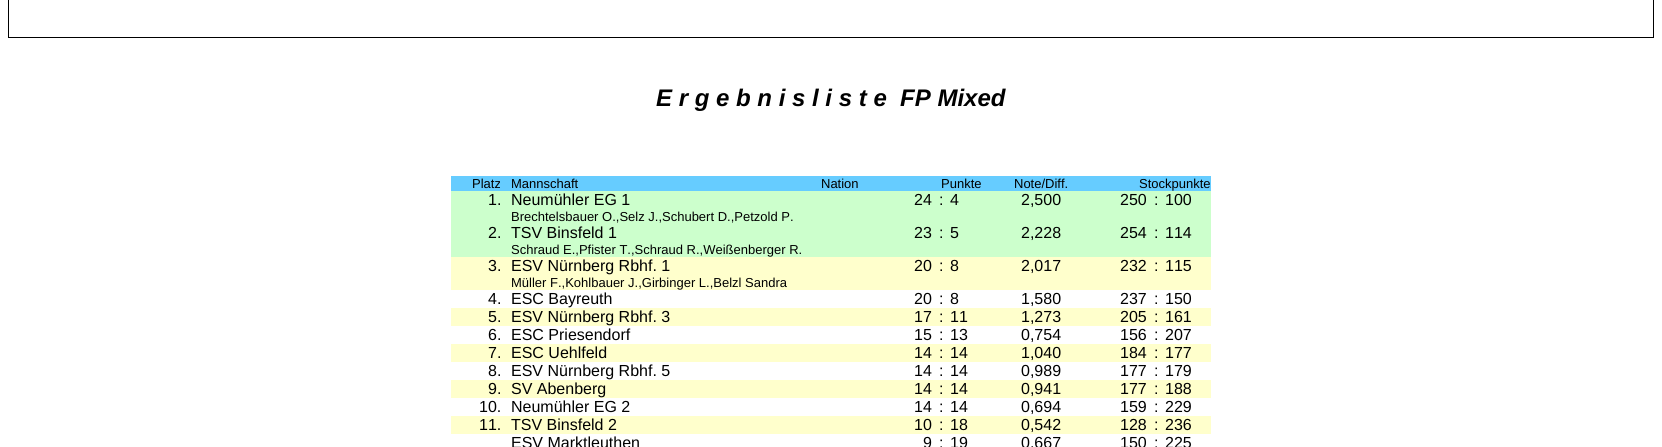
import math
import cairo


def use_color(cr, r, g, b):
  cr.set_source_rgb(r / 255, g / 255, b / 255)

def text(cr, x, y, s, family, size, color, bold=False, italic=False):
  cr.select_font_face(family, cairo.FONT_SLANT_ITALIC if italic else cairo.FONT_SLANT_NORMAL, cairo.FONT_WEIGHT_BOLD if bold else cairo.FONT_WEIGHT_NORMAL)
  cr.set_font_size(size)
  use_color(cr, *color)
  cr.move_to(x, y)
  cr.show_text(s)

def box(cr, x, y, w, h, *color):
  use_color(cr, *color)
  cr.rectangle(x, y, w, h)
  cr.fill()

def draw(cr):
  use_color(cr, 255, 255, 255)
  cr.paint()
  cr.rectangle(8.5, -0.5, 1645, 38)
  use_color(cr, 0, 0, 0)
  cr.set_line_width(1)
  cr.stroke()
  box(cr, 451, 176, 760, 15, 102, 204, 255)
  box(cr, 451, 191, 760, 18, 204, 255, 204)
  box(cr, 451, 209, 760, 15, 204, 255, 204)
  box(cr, 451, 224, 760, 18, 204, 255, 204)
  box(cr, 451, 242, 760, 15, 204, 255, 204)
  box(cr, 451, 257, 760, 18, 255, 255, 204)
  box(cr, 451, 275, 760, 15, 255, 255, 204)
  box(cr, 451, 308, 760, 18, 255, 255, 204)
  box(cr, 451, 344, 760, 18, 255, 255, 204)
  box(cr, 451, 380, 760, 18, 255, 255, 204)
  box(cr, 451, 416, 760, 18, 255, 255, 204)
  text(cr, 656, 106, "E r g e b n i s l i s t e  FP Mixed", "Liberation Sans", 24, (0, 0, 0), bold=True, italic=True)
  text(cr, 472, 188, "Platz", "Liberation Sans", 13, (0, 0, 0))
  text(cr, 511, 188, "Mannschaft", "Liberation Sans", 13, (0, 0, 0))
  text(cr, 821, 188, "Nation", "Liberation Sans", 13, (0, 0, 0))
  text(cr, 941, 188, "Punkte", "Liberation Sans", 13, (0, 0, 0))
  text(cr, 1014, 188, "Note/Diff.", "Liberation Sans", 13, (0, 0, 0))
  text(cr, 1139, 188, "Stockpunkte", "Liberation Sans", 13, (0, 0, 0))
  text(cr, 488, 205, "1.", "Liberation Sans", 16, (0, 0, 0))
  text(cr, 511, 205, "Neumühler EG 1", "Liberation Sans", 16, (0, 0, 0))
  text(cr, 914, 205, "24", "Liberation Sans", 16, (0, 0, 0))
  text(cr, 939, 205, ":", "Liberation Sans", 16, (0, 0, 0))
  text(cr, 950, 205, "4", "Liberation Sans", 16, (0, 0, 0))
  text(cr, 1021, 205, "2,500", "Liberation Sans", 16, (0, 0, 0))
  text(cr, 1120, 205, "250", "Liberation Sans", 16, (0, 0, 0))
  text(cr, 1154, 205, ":", "Liberation Sans", 16, (0, 0, 0))
  text(cr, 1165, 205, "100", "Liberation Sans", 16, (0, 0, 0))
  text(cr, 511, 221, "Brechtelsbauer O.,Selz J.,Schubert D.,Petzold P.", "Liberation Sans", 13, (0, 0, 0))
  text(cr, 488, 238, "2.", "Liberation Sans", 16, (0, 0, 0))
  text(cr, 511, 238, "TSV Binsfeld 1", "Liberation Sans", 16, (0, 0, 0))
  text(cr, 914, 238, "23", "Liberation Sans", 16, (0, 0, 0))
  text(cr, 939, 238, ":", "Liberation Sans", 16, (0, 0, 0))
  text(cr, 950, 238, "5", "Liberation Sans", 16, (0, 0, 0))
  text(cr, 1021, 238, "2,228", "Liberation Sans", 16, (0, 0, 0))
  text(cr, 1120, 238, "254", "Liberation Sans", 16, (0, 0, 0))
  text(cr, 1154, 238, ":", "Liberation Sans", 16, (0, 0, 0))
  text(cr, 1165, 238, "114", "Liberation Sans", 16, (0, 0, 0))
  text(cr, 511, 254, "Schraud E.,Pfister T.,Schraud R.,Weißenberger R.", "Liberation Sans", 13, (0, 0, 0))
  text(cr, 488, 271, "3.", "Liberation Sans", 16, (0, 0, 0))
  text(cr, 511, 271, "ESV Nürnberg Rbhf. 1", "Liberation Sans", 16, (0, 0, 0))
  text(cr, 914, 271, "20", "Liberation Sans", 16, (0, 0, 0))
  text(cr, 939, 271, ":", "Liberation Sans", 16, (0, 0, 0))
  text(cr, 950, 271, "8", "Liberation Sans", 16, (0, 0, 0))
  text(cr, 1021, 271, "2,017", "Liberation Sans", 16, (0, 0, 0))
  text(cr, 1120, 271, "232", "Liberation Sans", 16, (0, 0, 0))
  text(cr, 1154, 271, ":", "Liberation Sans", 16, (0, 0, 0))
  text(cr, 1165, 271, "115", "Liberation Sans", 16, (0, 0, 0))
  text(cr, 511, 287, "Müller F.,Kohlbauer J.,Girbinger L.,Belzl Sandra", "Liberation Sans", 13, (0, 0, 0))
  text(cr, 488, 304, "4.", "Liberation Sans", 16, (0, 0, 0))
  text(cr, 511, 304, "ESC Bayreuth", "Liberation Sans", 16, (0, 0, 0))
  text(cr, 914, 304, "20", "Liberation Sans", 16, (0, 0, 0))
  text(cr, 939, 304, ":", "Liberation Sans", 16, (0, 0, 0))
  text(cr, 950, 304, "8", "Liberation Sans", 16, (0, 0, 0))
  text(cr, 1021, 304, "1,580", "Liberation Sans", 16, (0, 0, 0))
  text(cr, 1120, 304, "237", "Liberation Sans", 16, (0, 0, 0))
  text(cr, 1154, 304, ":", "Liberation Sans", 16, (0, 0, 0))
  text(cr, 1165, 304, "150", "Liberation Sans", 16, (0, 0, 0))
  text(cr, 488, 322, "5.", "Liberation Sans", 16, (0, 0, 0))
  text(cr, 511, 322, "ESV Nürnberg Rbhf. 3", "Liberation Sans", 16, (0, 0, 0))
  text(cr, 914, 322, "17", "Liberation Sans", 16, (0, 0, 0))
  text(cr, 939, 322, ":", "Liberation Sans", 16, (0, 0, 0))
  text(cr, 950, 322, "11", "Liberation Sans", 16, (0, 0, 0))
  text(cr, 1021, 322, "1,273", "Liberation Sans", 16, (0, 0, 0))
  text(cr, 1120, 322, "205", "Liberation Sans", 16, (0, 0, 0))
  text(cr, 1154, 322, ":", "Liberation Sans", 16, (0, 0, 0))
  text(cr, 1165, 322, "161", "Liberation Sans", 16, (0, 0, 0))
  text(cr, 488, 340, "6.", "Liberation Sans", 16, (0, 0, 0))
  text(cr, 511, 340, "ESC Priesendorf", "Liberation Sans", 16, (0, 0, 0))
  text(cr, 914, 340, "15", "Liberation Sans", 16, (0, 0, 0))
  text(cr, 939, 340, ":", "Liberation Sans", 16, (0, 0, 0))
  text(cr, 950, 340, "13", "Liberation Sans", 16, (0, 0, 0))
  text(cr, 1021, 340, "0,754", "Liberation Sans", 16, (0, 0, 0))
  text(cr, 1120, 340, "156", "Liberation Sans", 16, (0, 0, 0))
  text(cr, 1154, 340, ":", "Liberation Sans", 16, (0, 0, 0))
  text(cr, 1165, 340, "207", "Liberation Sans", 16, (0, 0, 0))
  text(cr, 488, 358, "7.", "Liberation Sans", 16, (0, 0, 0))
  text(cr, 511, 358, "ESC Uehlfeld", "Liberation Sans", 16, (0, 0, 0))
  text(cr, 914, 358, "14", "Liberation Sans", 16, (0, 0, 0))
  text(cr, 939, 358, ":", "Liberation Sans", 16, (0, 0, 0))
  text(cr, 950, 358, "14", "Liberation Sans", 16, (0, 0, 0))
  text(cr, 1021, 358, "1,040", "Liberation Sans", 16, (0, 0, 0))
  text(cr, 1120, 358, "184", "Liberation Sans", 16, (0, 0, 0))
  text(cr, 1154, 358, ":", "Liberation Sans", 16, (0, 0, 0))
  text(cr, 1165, 358, "177", "Liberation Sans", 16, (0, 0, 0))
  text(cr, 488, 376, "8.", "Liberation Sans", 16, (0, 0, 0))
  text(cr, 511, 376, "ESV Nürnberg Rbhf. 5", "Liberation Sans", 16, (0, 0, 0))
  text(cr, 914, 376, "14", "Liberation Sans", 16, (0, 0, 0))
  text(cr, 939, 376, ":", "Liberation Sans", 16, (0, 0, 0))
  text(cr, 950, 376, "14", "Liberation Sans", 16, (0, 0, 0))
  text(cr, 1021, 376, "0,989", "Liberation Sans", 16, (0, 0, 0))
  text(cr, 1120, 376, "177", "Liberation Sans", 16, (0, 0, 0))
  text(cr, 1154, 376, ":", "Liberation Sans", 16, (0, 0, 0))
  text(cr, 1165, 376, "179", "Liberation Sans", 16, (0, 0, 0))
  text(cr, 488, 394, "9.", "Liberation Sans", 16, (0, 0, 0))
  text(cr, 511, 394, "SV Abenberg", "Liberation Sans", 16, (0, 0, 0))
  text(cr, 914, 394, "14", "Liberation Sans", 16, (0, 0, 0))
  text(cr, 939, 394, ":", "Liberation Sans", 16, (0, 0, 0))
  text(cr, 950, 394, "14", "Liberation Sans", 16, (0, 0, 0))
  text(cr, 1021, 394, "0,941", "Liberation Sans", 16, (0, 0, 0))
  text(cr, 1120, 394, "177", "Liberation Sans", 16, (0, 0, 0))
  text(cr, 1154, 394, ":", "Liberation Sans", 16, (0, 0, 0))
  text(cr, 1165, 394, "188", "Liberation Sans", 16, (0, 0, 0))
  text(cr, 479, 412, "10.", "Liberation Sans", 16, (0, 0, 0))
  text(cr, 511, 412, "Neumühler EG 2", "Liberation Sans", 16, (0, 0, 0))
  text(cr, 914, 412, "14", "Liberation Sans", 16, (0, 0, 0))
  text(cr, 939, 412, ":", "Liberation Sans", 16, (0, 0, 0))
  text(cr, 950, 412, "14", "Liberation Sans", 16, (0, 0, 0))
  text(cr, 1021, 412, "0,694", "Liberation Sans", 16, (0, 0, 0))
  text(cr, 1120, 412, "159", "Liberation Sans", 16, (0, 0, 0))
  text(cr, 1154, 412, ":", "Liberation Sans", 16, (0, 0, 0))
  text(cr, 1165, 412, "229", "Liberation Sans", 16, (0, 0, 0))
  text(cr, 479, 430, "11.", "Liberation Sans", 16, (0, 0, 0))
  text(cr, 511, 430, "TSV Binsfeld 2", "Liberation Sans", 16, (0, 0, 0))
  text(cr, 914, 430, "10", "Liberation Sans", 16, (0, 0, 0))
  text(cr, 939, 430, ":", "Liberation Sans", 16, (0, 0, 0))
  text(cr, 950, 430, "18", "Liberation Sans", 16, (0, 0, 0))
  text(cr, 1021, 430, "0,542", "Liberation Sans", 16, (0, 0, 0))
  text(cr, 1120, 430, "128", "Liberation Sans", 16, (0, 0, 0))
  text(cr, 1154, 430, ":", "Liberation Sans", 16, (0, 0, 0))
  text(cr, 1165, 430, "236", "Liberation Sans", 16, (0, 0, 0))
  text(cr, 511, 448, "ESV Marktleuthen", "Liberation Sans", 16, (0, 0, 0))
  text(cr, 923, 448, "9", "Liberation Sans", 16, (0, 0, 0))
  text(cr, 939, 448, ":", "Liberation Sans", 16, (0, 0, 0))
  text(cr, 950, 448, "19", "Liberation Sans", 16, (0, 0, 0))
  text(cr, 1021, 448, "0,667", "Liberation Sans", 16, (0, 0, 0))
  text(cr, 1120, 448, "150", "Liberation Sans", 16, (0, 0, 0))
  text(cr, 1154, 448, ":", "Liberation Sans", 16, (0, 0, 0))
  text(cr, 1165, 448, "225", "Liberation Sans", 16, (0, 0, 0))


surface = cairo.ImageSurface(cairo.FORMAT_RGB24, 1662, 447)
cr = cairo.Context(surface)
options = cairo.FontOptions()
options.set_hint_metrics(cairo.HINT_METRICS_OFF)
options.set_hint_style(cairo.HINT_STYLE_NONE)
cr.set_font_options(options)
cr.set_miter_limit(4)
draw(cr)
surface.write_to_png("out.png")
